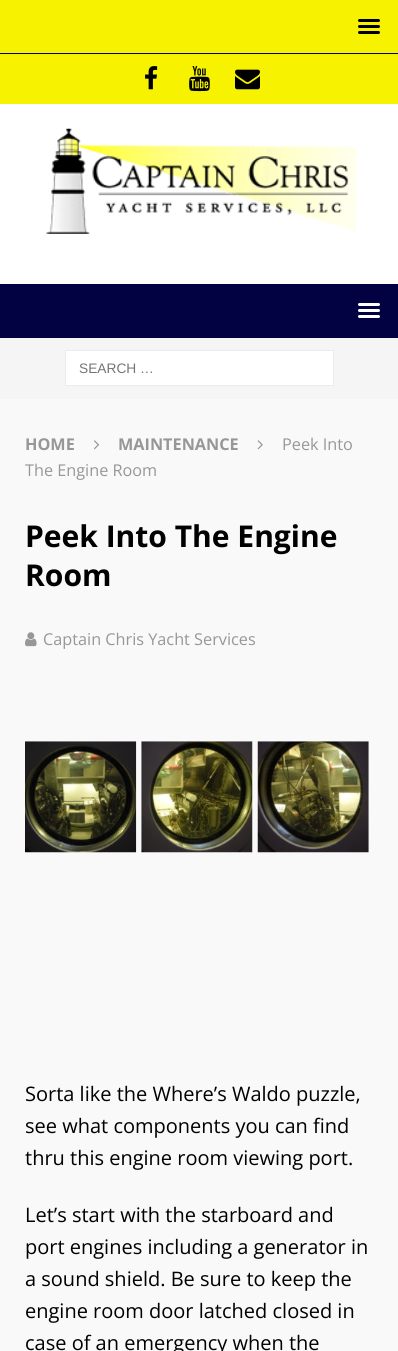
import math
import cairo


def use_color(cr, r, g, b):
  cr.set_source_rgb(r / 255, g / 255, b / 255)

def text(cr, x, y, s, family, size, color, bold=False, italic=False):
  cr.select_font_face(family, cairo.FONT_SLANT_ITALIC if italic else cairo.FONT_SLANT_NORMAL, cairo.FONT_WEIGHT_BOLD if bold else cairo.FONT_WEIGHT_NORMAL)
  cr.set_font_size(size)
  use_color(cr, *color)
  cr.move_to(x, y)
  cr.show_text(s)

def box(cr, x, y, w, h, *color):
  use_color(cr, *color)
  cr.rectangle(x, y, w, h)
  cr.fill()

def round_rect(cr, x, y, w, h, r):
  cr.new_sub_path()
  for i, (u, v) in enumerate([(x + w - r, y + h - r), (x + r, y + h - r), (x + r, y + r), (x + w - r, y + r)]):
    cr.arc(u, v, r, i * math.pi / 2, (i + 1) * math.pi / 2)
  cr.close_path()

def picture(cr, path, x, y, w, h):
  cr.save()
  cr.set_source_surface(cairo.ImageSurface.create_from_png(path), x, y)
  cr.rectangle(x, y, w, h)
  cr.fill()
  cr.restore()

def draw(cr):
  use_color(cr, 247, 243, 0)
  cr.paint()
  box(cr, 0, 53, 398, 1, 2, 2, 66)
  use_color(cr, 0, 0, 0)
  round_rect(cr, 358, 19, 22, 3, 1.5)
  cr.fill()
  round_rect(cr, 358, 25, 22, 3, 1.5)
  cr.fill()
  round_rect(cr, 358, 31, 22, 3, 1.5)
  cr.fill()
  picture(cr, "img_01.png", 145, 66, 13, 24)
  picture(cr, "img_02.png", 189, 66, 21, 26)
  picture(cr, "img_03.png", 235, 69, 25, 21)
  box(cr, 0, 104, 398, 180, 255, 255, 255)
  picture(cr, "img_04.png", 46, 128, 311, 106)
  box(cr, 0, 284, 398, 54, 2, 2, 66)
  use_color(cr, 255, 255, 255)
  round_rect(cr, 358, 303, 22, 3, 1.5)
  cr.fill()
  round_rect(cr, 358, 309, 22, 3, 1.5)
  cr.fill()
  round_rect(cr, 358, 315, 22, 3, 1.5)
  cr.fill()
  box(cr, 0, 338, 398, 61, 245, 245, 245)
  use_color(cr, 255, 255, 255)
  cr.rectangle(65.5, 350.5, 268, 35)
  cr.fill_preserve()
  use_color(cr, 235, 235, 235)
  cr.set_line_width(1)
  cr.stroke()
  box(cr, 0, 399, 398, 952, 249, 249, 249)
  picture(cr, "img_05.png", 94, 440, 6, 10)
  picture(cr, "img_06.png", 257, 440, 6, 10)
  picture(cr, "img_07.png", 25, 632, 12, 15)
  picture(cr, "img_08.png", 25, 741, 112, 112)
  picture(cr, "img_09.png", 141, 741, 112, 112)
  picture(cr, "img_10.png", 257, 741, 112, 112)
  text(cr, 79, 373, "SEARCH …", "Liberation Sans", 13.75, (117, 117, 117))
  text(cr, 25, 450, "HOME", "Open Sans", 16.25, (151, 151, 151), bold=True)
  text(cr, 118, 450, "MAINTENANCE", "Open Sans", 16.25, (151, 151, 151), bold=True)
  text(cr, 282, 450, "Peek Into", "Open Sans", 16.25, (151, 151, 151))
  text(cr, 25, 476, "The Engine Room", "Open Sans", 16.25, (151, 151, 151))
  text(cr, 25, 547, "Peek Into The Engine", "Open Sans", 30, (0, 0, 0), bold=True)
  text(cr, 25, 586, "Room", "Open Sans", 30, (0, 0, 0), bold=True)
  text(cr, 43, 645, "Captain Chris Yacht Services", "Open Sans", 16.25, (151, 151, 151))
  text(cr, 25, 1101, "Sorta like the Where’s Waldo puzzle,", "Open Sans", 20, (0, 0, 0))
  text(cr, 25, 1133, "see what components you can find", "Open Sans", 20, (0, 0, 0))
  text(cr, 25, 1165, "thru this engine room viewing port.", "Open Sans", 20, (0, 0, 0))
  text(cr, 25, 1222, "Let’s start with the starboard and", "Open Sans", 20, (0, 0, 0))
  text(cr, 25, 1254, "port engines including a generator in", "Open Sans", 20, (0, 0, 0))
  text(cr, 25, 1286, "a sound shield. Be sure to keep the", "Open Sans", 20, (0, 0, 0))
  text(cr, 25, 1318, "engine room door latched closed in", "Open Sans", 20, (0, 0, 0))
  text(cr, 25, 1350, "case of an emergency when the", "Open Sans", 20, (0, 0, 0))


surface = cairo.ImageSurface(cairo.FORMAT_RGB24, 398, 1351)
cr = cairo.Context(surface)
options = cairo.FontOptions()
options.set_hint_metrics(cairo.HINT_METRICS_OFF)
options.set_hint_style(cairo.HINT_STYLE_NONE)
cr.set_font_options(options)
cr.set_miter_limit(4)
draw(cr)
surface.write_to_png("out.png")
